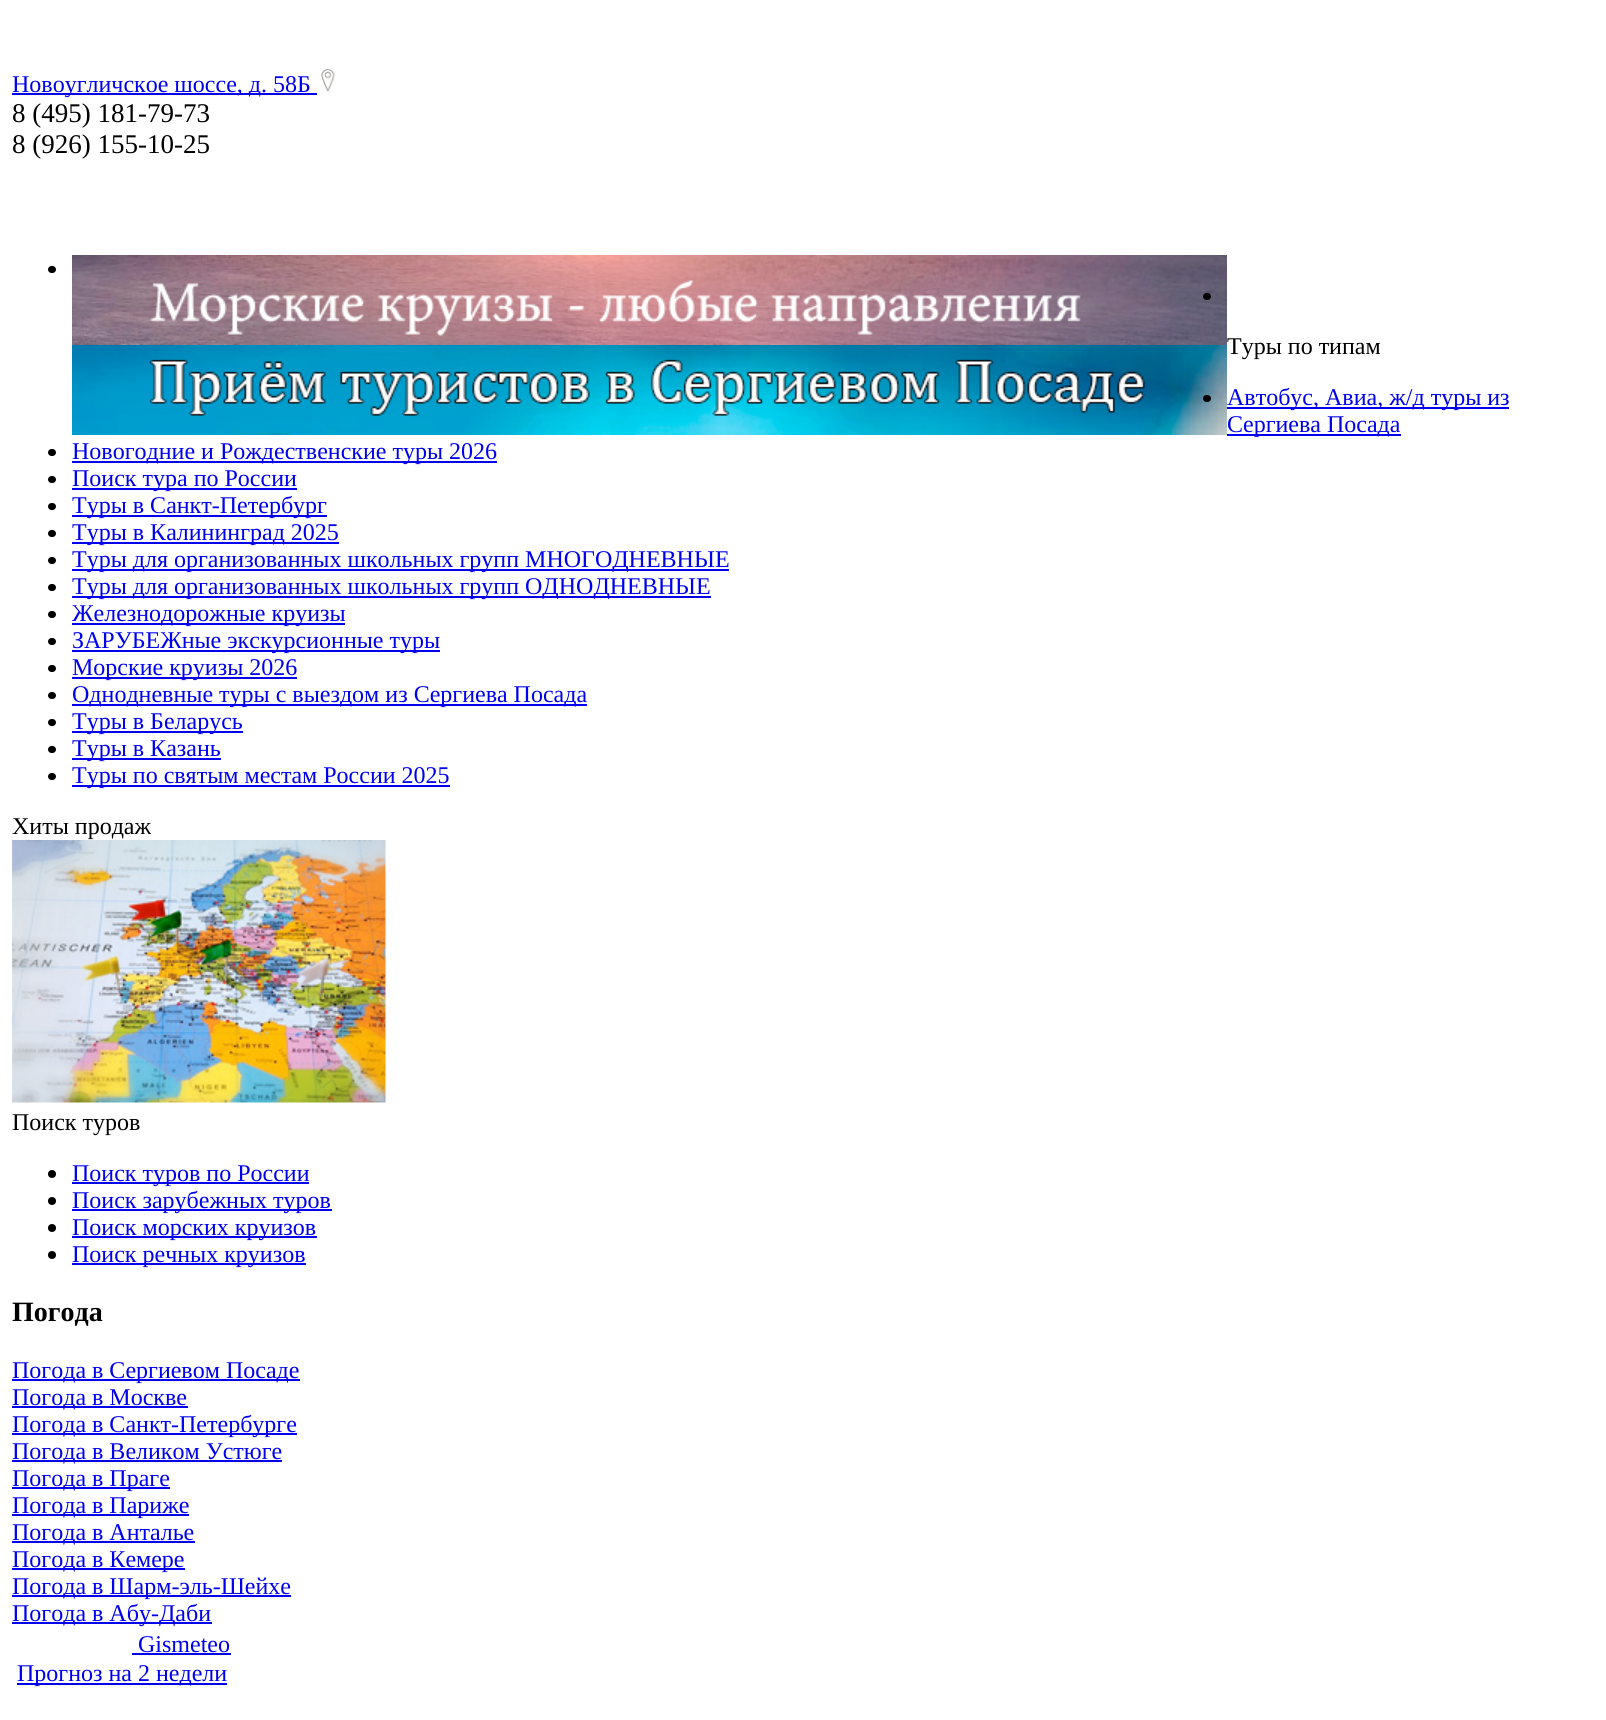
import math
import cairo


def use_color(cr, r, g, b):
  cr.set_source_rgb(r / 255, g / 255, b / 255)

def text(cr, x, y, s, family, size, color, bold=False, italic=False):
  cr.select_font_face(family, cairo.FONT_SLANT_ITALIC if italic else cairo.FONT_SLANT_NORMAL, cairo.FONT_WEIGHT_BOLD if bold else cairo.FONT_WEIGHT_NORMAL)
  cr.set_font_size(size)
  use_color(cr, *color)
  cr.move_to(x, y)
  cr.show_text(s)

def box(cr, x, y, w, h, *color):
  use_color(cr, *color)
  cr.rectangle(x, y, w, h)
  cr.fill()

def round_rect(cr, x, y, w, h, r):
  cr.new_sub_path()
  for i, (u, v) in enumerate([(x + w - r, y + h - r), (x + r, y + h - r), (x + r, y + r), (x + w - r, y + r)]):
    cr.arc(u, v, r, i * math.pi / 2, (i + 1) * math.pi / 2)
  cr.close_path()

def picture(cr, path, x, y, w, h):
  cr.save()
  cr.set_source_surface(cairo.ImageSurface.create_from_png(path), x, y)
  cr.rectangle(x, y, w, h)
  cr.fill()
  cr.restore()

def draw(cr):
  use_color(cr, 255, 255, 255)
  cr.paint()
  box(cr, 12, 93, 305, 2, 0, 0, 238)
  picture(cr, "img_01.png", 321, 69, 14, 23)
  use_color(cr, 0, 0, 0)
  round_rect(cr, 48, 266, 8, 7, 3.5)
  cr.fill()
  picture(cr, "img_02.png", 72, 255, 1155, 90)
  round_rect(cr, 1203, 293, 8, 7, 3.5)
  cr.fill()
  picture(cr, "img_03.png", 72, 345, 1155, 90)
  round_rect(cr, 1203, 395, 8, 7, 3.5)
  cr.fill()
  box(cr, 1227, 407, 282, 2, 0, 0, 238)
  box(cr, 1227, 434, 174, 2, 0, 0, 238)
  use_color(cr, 0, 0, 0)
  round_rect(cr, 48, 449, 8, 7, 3.5)
  cr.fill()
  box(cr, 72, 461, 425, 2, 0, 0, 238)
  use_color(cr, 0, 0, 0)
  round_rect(cr, 48, 476, 8, 7, 3.5)
  cr.fill()
  box(cr, 72, 488, 225, 2, 0, 0, 238)
  use_color(cr, 0, 0, 0)
  round_rect(cr, 48, 503, 8, 7, 3.5)
  cr.fill()
  box(cr, 72, 515, 255, 2, 0, 0, 238)
  use_color(cr, 0, 0, 0)
  round_rect(cr, 48, 530, 8, 7, 3.5)
  cr.fill()
  box(cr, 72, 542, 267, 2, 0, 0, 238)
  use_color(cr, 0, 0, 0)
  round_rect(cr, 48, 557, 8, 7, 3.5)
  cr.fill()
  box(cr, 72, 569, 657, 2, 0, 0, 238)
  use_color(cr, 0, 0, 0)
  round_rect(cr, 48, 584, 8, 7, 3.5)
  cr.fill()
  box(cr, 72, 596, 639, 2, 0, 0, 238)
  use_color(cr, 0, 0, 0)
  round_rect(cr, 48, 611, 8, 7, 3.5)
  cr.fill()
  box(cr, 72, 623, 273, 2, 0, 0, 238)
  use_color(cr, 0, 0, 0)
  round_rect(cr, 48, 638, 8, 7, 3.5)
  cr.fill()
  box(cr, 72, 650, 368, 2, 0, 0, 238)
  use_color(cr, 0, 0, 0)
  round_rect(cr, 48, 665, 8, 7, 3.5)
  cr.fill()
  box(cr, 72, 677, 225, 2, 0, 0, 238)
  use_color(cr, 0, 0, 0)
  round_rect(cr, 48, 692, 8, 7, 3.5)
  cr.fill()
  box(cr, 72, 704, 515, 2, 0, 0, 238)
  use_color(cr, 0, 0, 0)
  round_rect(cr, 48, 719, 8, 7, 3.5)
  cr.fill()
  box(cr, 72, 731, 171, 2, 0, 0, 238)
  use_color(cr, 0, 0, 0)
  round_rect(cr, 48, 746, 8, 7, 3.5)
  cr.fill()
  box(cr, 72, 758, 149, 2, 0, 0, 238)
  use_color(cr, 0, 0, 0)
  round_rect(cr, 48, 773, 8, 7, 3.5)
  cr.fill()
  box(cr, 72, 785, 378, 2, 0, 0, 238)
  picture(cr, "img_04.png", 12, 840, 374, 263)
  use_color(cr, 0, 0, 0)
  cr.arc(52, 1174, 4, 0, 2 * math.pi)
  cr.fill()
  box(cr, 72, 1182, 237, 2, 0, 0, 238)
  use_color(cr, 0, 0, 0)
  cr.arc(52, 1201, 4, 0, 2 * math.pi)
  cr.fill()
  box(cr, 72, 1209, 260, 2, 0, 0, 238)
  use_color(cr, 0, 0, 0)
  cr.arc(52, 1228, 4, 0, 2 * math.pi)
  cr.fill()
  box(cr, 72, 1236, 245, 2, 0, 0, 238)
  use_color(cr, 0, 0, 0)
  cr.arc(52, 1255, 4, 0, 2 * math.pi)
  cr.fill()
  box(cr, 72, 1263, 234, 2, 0, 0, 238)
  box(cr, 12, 1379, 288, 2, 0, 0, 238)
  box(cr, 12, 1406, 176, 2, 0, 0, 238)
  box(cr, 12, 1433, 285, 2, 0, 0, 238)
  box(cr, 12, 1460, 270, 2, 0, 0, 238)
  box(cr, 12, 1487, 158, 2, 0, 0, 238)
  box(cr, 12, 1514, 177, 2, 0, 0, 238)
  box(cr, 12, 1541, 183, 2, 0, 0, 238)
  box(cr, 12, 1568, 173, 2, 0, 0, 238)
  box(cr, 12, 1595, 279, 2, 0, 0, 238)
  box(cr, 12, 1622, 200, 2, 0, 0, 238)
  box(cr, 132, 1653, 99, 2, 0, 0, 238)
  box(cr, 17, 1683, 210, 2, 0, 0, 238)
  text(cr, 12, 92, "Новоугличское шоссе, д. 58Б", "Liberation Serif", 24, (0, 0, 238))
  text(cr, 12, 122, "8 (495) 181-79-73", "Liberation Serif", 27, (0, 0, 0))
  text(cr, 12, 153, "8 (926) 155-10-25", "Liberation Serif", 27, (0, 0, 0))
  text(cr, 1227, 354, "Туры по типам", "Liberation Serif", 24, (0, 0, 0))
  text(cr, 1227, 405, "Автобус, Авиа, ж/д туры из", "Liberation Serif", 24, (0, 0, 238))
  text(cr, 1227, 432, "Сергиева Посада", "Liberation Serif", 24, (0, 0, 238))
  text(cr, 72, 459, "Новогодние и Рождественские туры 2026", "Liberation Serif", 24, (0, 0, 238))
  text(cr, 72, 486, "Поиск тура по России", "Liberation Serif", 24, (0, 0, 238))
  text(cr, 72, 513, "Туры в Санкт-Петербург", "Liberation Serif", 24, (0, 0, 238))
  text(cr, 72, 540, "Туры в Калининград 2025", "Liberation Serif", 24, (0, 0, 238))
  text(cr, 72, 567, "Туры для организованных школьных групп МНОГОДНЕВНЫЕ", "Liberation Serif", 24, (0, 0, 238))
  text(cr, 72, 594, "Туры для организованных школьных групп ОДНОДНЕВНЫЕ", "Liberation Serif", 24, (0, 0, 238))
  text(cr, 72, 621, "Железнодорожные круизы", "Liberation Serif", 24, (0, 0, 238))
  text(cr, 72, 648, "ЗАРУБЕЖные экскурсионные туры", "Liberation Serif", 24, (0, 0, 238))
  text(cr, 72, 675, "Морские круизы 2026", "Liberation Serif", 24, (0, 0, 238))
  text(cr, 72, 702, "Однодневные туры с выездом из Сергиева Посада", "Liberation Serif", 24, (0, 0, 238))
  text(cr, 72, 729, "Туры в Беларусь", "Liberation Serif", 24, (0, 0, 238))
  text(cr, 72, 756, "Туры в Казань", "Liberation Serif", 24, (0, 0, 238))
  text(cr, 72, 783, "Туры по святым местам России 2025", "Liberation Serif", 24, (0, 0, 238))
  text(cr, 12, 834, "Хиты продаж", "Liberation Serif", 24, (0, 0, 0))
  text(cr, 12, 1130, "Поиск туров", "Liberation Serif", 24, (0, 0, 0))
  text(cr, 72, 1181, "Поиск туров по России", "Liberation Serif", 24, (0, 0, 238))
  text(cr, 72, 1208, "Поиск зарубежных туров", "Liberation Serif", 24, (0, 0, 238))
  text(cr, 72, 1235, "Поиск морских круизов", "Liberation Serif", 24, (0, 0, 238))
  text(cr, 72, 1262, "Поиск речных круизов", "Liberation Serif", 24, (0, 0, 238))
  text(cr, 12, 1321, "Погода", "Liberation Serif", 28, (0, 0, 0), bold=True)
  text(cr, 12, 1378, "Погода в Сергиевом Посаде", "Liberation Serif", 24, (0, 0, 238))
  text(cr, 12, 1405, "Погода в Москве", "Liberation Serif", 24, (0, 0, 238))
  text(cr, 12, 1432, "Погода в Санкт-Петербурге", "Liberation Serif", 24, (0, 0, 238))
  text(cr, 12, 1459, "Погода в Великом Устюге", "Liberation Serif", 24, (0, 0, 238))
  text(cr, 12, 1486, "Погода в Праге", "Liberation Serif", 24, (0, 0, 238))
  text(cr, 12, 1513, "Погода в Париже", "Liberation Serif", 24, (0, 0, 238))
  text(cr, 12, 1540, "Погода в Анталье", "Liberation Serif", 24, (0, 0, 238))
  text(cr, 12, 1567, "Погода в Кемере", "Liberation Serif", 24, (0, 0, 238))
  text(cr, 12, 1594, "Погода в Шарм-эль-Шейхе", "Liberation Serif", 24, (0, 0, 238))
  text(cr, 12, 1621, "Погода в Абу-Даби", "Liberation Serif", 24, (0, 0, 238))
  text(cr, 138, 1652, "Gismeteo", "Liberation Serif", 24, (0, 0, 238))
  text(cr, 17, 1681, "Прогноз на 2 недели", "Liberation Serif", 24, (0, 0, 238))


surface = cairo.ImageSurface(cairo.FORMAT_RGB24, 1606, 1720)
cr = cairo.Context(surface)
options = cairo.FontOptions()
options.set_hint_metrics(cairo.HINT_METRICS_OFF)
options.set_hint_style(cairo.HINT_STYLE_NONE)
cr.set_font_options(options)
cr.set_miter_limit(4)
draw(cr)
surface.write_to_png("out.png")
